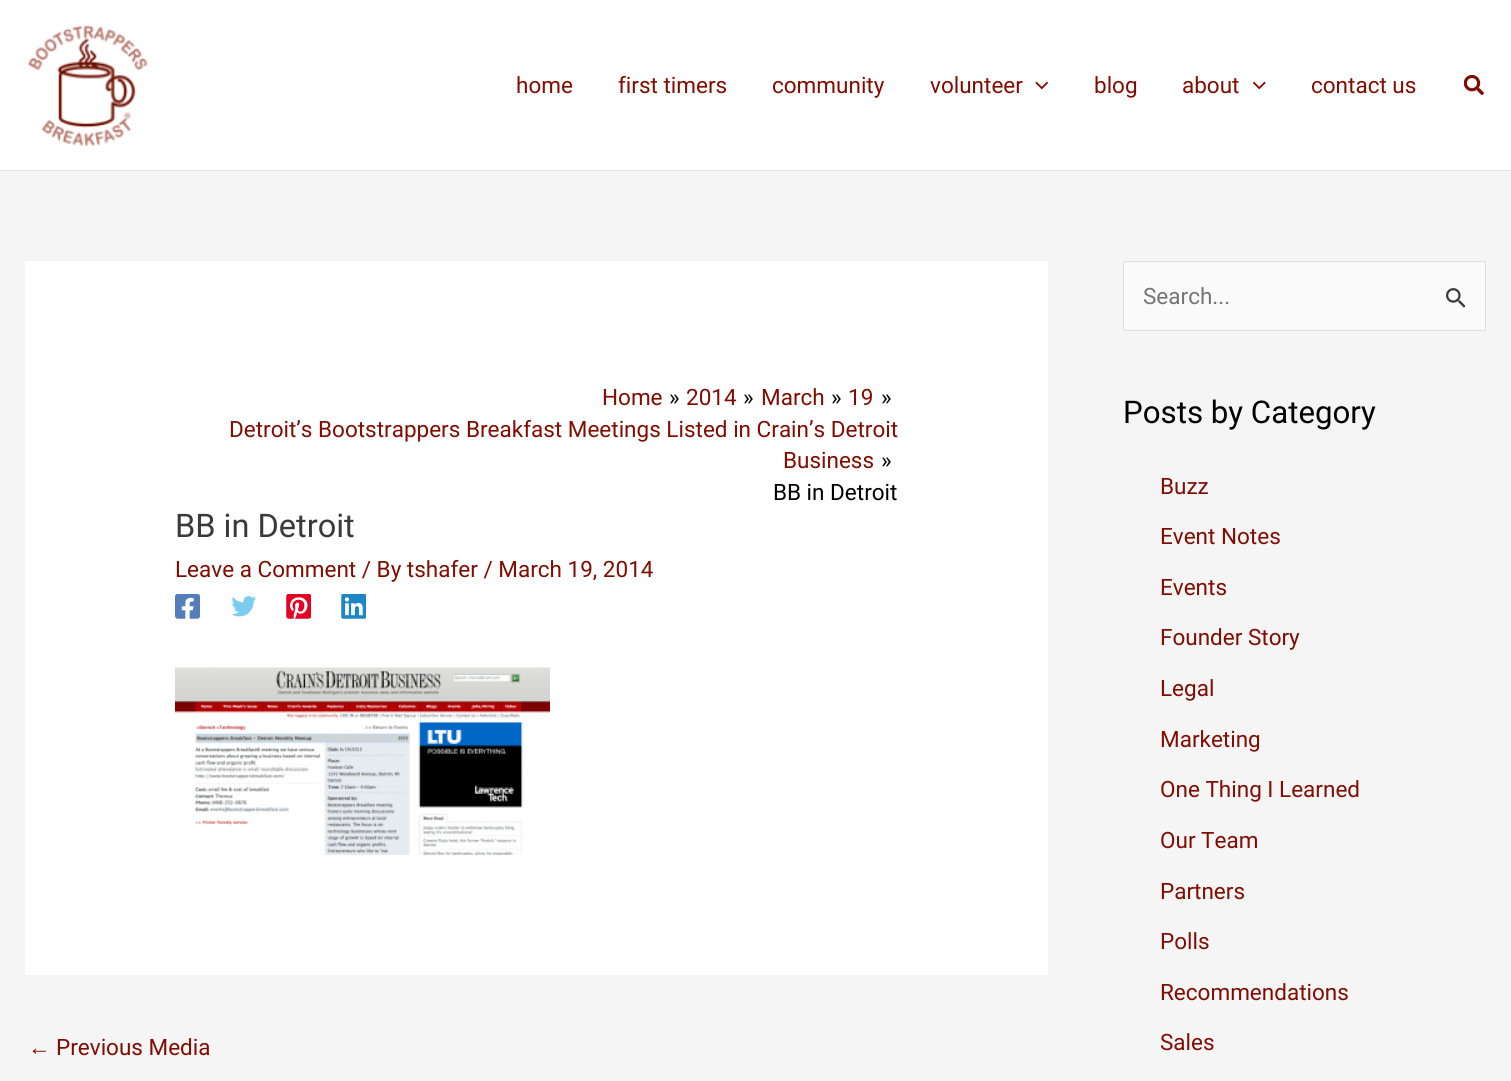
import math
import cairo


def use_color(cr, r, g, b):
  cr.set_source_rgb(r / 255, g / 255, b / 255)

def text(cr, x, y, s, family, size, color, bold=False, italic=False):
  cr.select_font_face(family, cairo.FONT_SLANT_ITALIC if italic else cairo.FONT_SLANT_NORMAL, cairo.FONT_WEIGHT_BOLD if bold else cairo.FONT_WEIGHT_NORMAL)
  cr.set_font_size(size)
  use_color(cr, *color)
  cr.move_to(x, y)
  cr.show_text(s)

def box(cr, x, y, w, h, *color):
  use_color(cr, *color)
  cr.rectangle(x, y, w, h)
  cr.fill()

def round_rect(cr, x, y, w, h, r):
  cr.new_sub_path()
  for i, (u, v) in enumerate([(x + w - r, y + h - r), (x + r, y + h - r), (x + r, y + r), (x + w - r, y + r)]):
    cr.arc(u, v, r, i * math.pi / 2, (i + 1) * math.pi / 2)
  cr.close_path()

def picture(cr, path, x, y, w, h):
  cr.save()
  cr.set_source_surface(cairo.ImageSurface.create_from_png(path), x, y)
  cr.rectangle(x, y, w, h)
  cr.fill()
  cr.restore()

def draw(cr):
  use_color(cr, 245, 245, 245)
  cr.paint()
  box(cr, 0, 0, 1511, 170, 255, 255, 255)
  box(cr, 0, 170, 1511, 1, 229, 229, 229)
  picture(cr, "img_01.png", 27, 25, 121, 122)
  picture(cr, "img_02.png", 1035, 81, 14, 9)
  picture(cr, "img_03.png", 1253, 81, 13, 9)
  picture(cr, "img_04.png", 1464, 74, 20, 22)
  box(cr, 25, 261, 1023, 714, 255, 255, 255)
  picture(cr, "img_05.png", 175, 594, 25, 25)
  picture(cr, "img_06.png", 231, 596, 25, 21)
  picture(cr, "img_07.png", 286, 594, 25, 25)
  picture(cr, "img_08.png", 341, 594, 25, 25)
  picture(cr, "img_09.png", 175, 667, 375, 188)
  use_color(cr, 250, 250, 250)
  round_rect(cr, 1123.5, 261.5, 362, 69, 2)
  cr.fill_preserve()
  use_color(cr, 221, 221, 221)
  cr.set_line_width(1)
  cr.stroke()
  picture(cr, "img_10.png", 1446, 288, 19, 20)
  text(cr, 516, 93, "home", "Roboto", 22.5, (127, 13, 2))
  text(cr, 618, 93, "first timers", "Roboto", 22.5, (127, 13, 2))
  text(cr, 772, 93, "community", "Roboto", 22.5, (127, 13, 2))
  text(cr, 930, 93, "volunteer", "Roboto", 22.5, (127, 13, 2))
  text(cr, 1094, 93, "blog", "Roboto", 22.5, (127, 13, 2))
  text(cr, 1182, 93, "about", "Roboto", 22.5, (127, 13, 2))
  text(cr, 1311, 93, "contact us", "Roboto", 22.5, (127, 13, 2))
  text(cr, 602, 405, "Home", "Roboto", 22.5, (127, 13, 2))
  text(cr, 669, 405, "»", "Roboto", 22.5, (0, 0, 0))
  text(cr, 686, 405, "2014", "Roboto", 22.5, (127, 13, 2))
  text(cr, 743, 405, "»", "Roboto", 22.5, (0, 0, 0))
  text(cr, 761, 405, "March", "Roboto", 22.5, (127, 13, 2))
  text(cr, 831, 405, "»", "Roboto", 22.5, (0, 0, 0))
  text(cr, 848, 405, "19", "Roboto", 22.5, (127, 13, 2))
  text(cr, 881, 405, "»", "Roboto", 22.5, (0, 0, 0))
  text(cr, 229, 437, "Detroit’s Bootstrappers Breakfast Meetings Listed in Crain’s Detroit", "Roboto", 22.5, (127, 13, 2))
  text(cr, 783, 468, "Business", "Roboto", 22.5, (127, 13, 2))
  text(cr, 881, 468, "»", "Roboto", 22.5, (0, 0, 0))
  text(cr, 773, 500, "BB in Detroit", "Roboto", 22.5, (0, 0, 0))
  text(cr, 175, 537, "BB in Detroit", "Roboto", 32.5, (58, 58, 58))
  text(cr, 175, 577, "Leave a Comment / By tshafer / March 19, 2014", "Roboto", 22.5, (127, 13, 2))
  text(cr, 28, 1055, "←", "Liberation Sans", 22.5, (127, 13, 2))
  text(cr, 56, 1055, "Previous Media", "Roboto", 22.5, (127, 13, 2))
  text(cr, 1143, 304, "Search...", "Roboto", 22.5, (117, 117, 117))
  text(cr, 1123, 423, "Posts by Category", "Roboto", 31.25, (0, 0, 0))
  text(cr, 1160, 494, "Buzz", "Roboto", 22.5, (127, 13, 2))
  text(cr, 1160, 544, "Event Notes", "Roboto", 22.5, (127, 13, 2))
  text(cr, 1160, 595, "Events", "Roboto", 22.5, (127, 13, 2))
  text(cr, 1160, 645, "Founder Story", "Roboto", 22.5, (127, 13, 2))
  text(cr, 1160, 696, "Legal", "Roboto", 22.5, (127, 13, 2))
  text(cr, 1160, 747, "Marketing", "Roboto", 22.5, (127, 13, 2))
  text(cr, 1160, 797, "One Thing I Learned", "Roboto", 22.5, (127, 13, 2))
  text(cr, 1160, 848, "Our Team", "Roboto", 22.5, (127, 13, 2))
  text(cr, 1160, 899, "Partners", "Roboto", 22.5, (127, 13, 2))
  text(cr, 1160, 949, "Polls", "Roboto", 22.5, (127, 13, 2))
  text(cr, 1160, 1000, "Recommendations", "Roboto", 22.5, (127, 13, 2))
  text(cr, 1160, 1050, "Sales", "Roboto", 22.5, (127, 13, 2))


surface = cairo.ImageSurface(cairo.FORMAT_RGB24, 1511, 1081)
cr = cairo.Context(surface)
options = cairo.FontOptions()
options.set_hint_metrics(cairo.HINT_METRICS_OFF)
options.set_hint_style(cairo.HINT_STYLE_NONE)
cr.set_font_options(options)
cr.set_miter_limit(4)
draw(cr)
surface.write_to_png("out.png")
